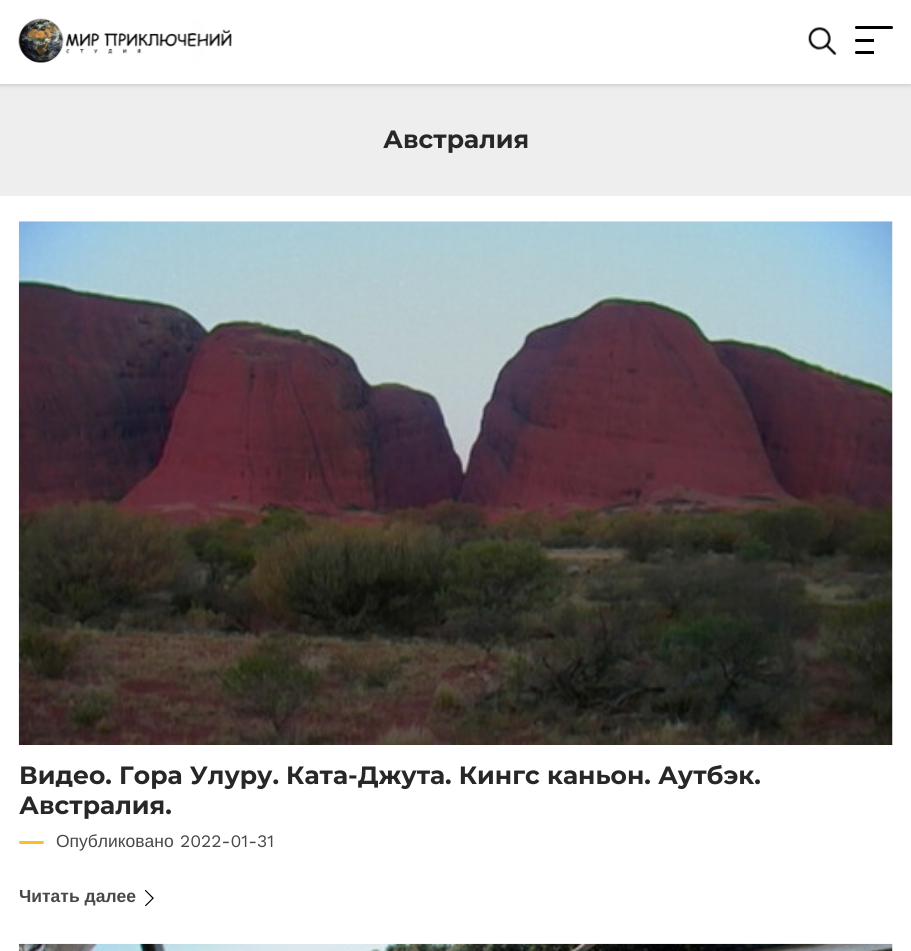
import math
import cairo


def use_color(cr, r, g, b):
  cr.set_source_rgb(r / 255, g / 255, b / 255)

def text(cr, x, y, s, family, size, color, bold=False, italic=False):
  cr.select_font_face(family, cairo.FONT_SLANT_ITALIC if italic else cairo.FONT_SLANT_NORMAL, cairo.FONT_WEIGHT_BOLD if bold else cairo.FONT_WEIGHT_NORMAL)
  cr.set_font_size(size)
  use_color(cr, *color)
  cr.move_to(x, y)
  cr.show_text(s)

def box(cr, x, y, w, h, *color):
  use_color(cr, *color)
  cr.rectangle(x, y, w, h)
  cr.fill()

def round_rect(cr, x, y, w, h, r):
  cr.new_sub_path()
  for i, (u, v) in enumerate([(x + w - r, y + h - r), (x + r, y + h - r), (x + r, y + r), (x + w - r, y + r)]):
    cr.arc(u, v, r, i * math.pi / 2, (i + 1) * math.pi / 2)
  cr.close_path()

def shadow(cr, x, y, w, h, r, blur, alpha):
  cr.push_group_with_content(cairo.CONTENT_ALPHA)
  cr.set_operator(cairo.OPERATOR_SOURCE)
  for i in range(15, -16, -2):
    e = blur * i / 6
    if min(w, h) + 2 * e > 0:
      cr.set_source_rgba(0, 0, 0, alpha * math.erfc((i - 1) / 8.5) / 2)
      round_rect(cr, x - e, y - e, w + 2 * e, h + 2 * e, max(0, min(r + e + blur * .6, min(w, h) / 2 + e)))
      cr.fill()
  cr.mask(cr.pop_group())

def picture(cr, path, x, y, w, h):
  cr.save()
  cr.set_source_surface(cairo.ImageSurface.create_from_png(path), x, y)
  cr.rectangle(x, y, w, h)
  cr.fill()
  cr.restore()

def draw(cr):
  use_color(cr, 255, 255, 255)
  cr.paint()
  box(cr, 0, 84, 911, 112, 238, 238, 238)
  use_color(cr, 183, 183, 183)
  shadow(cr, 0, 0, 911, 84, 0, 3, 1)
  box(cr, 0, 0, 911, 84, 255, 255, 255)
  picture(cr, "img_01.png", 18, 18, 214, 45)
  picture(cr, "img_02.png", 808, 27, 29, 29)
  use_color(cr, 0, 0, 0)
  cr.new_path()
  cr.move_to(856.5, 26)
  cr.line_to(874, 26)
  cr.line_to(874, 29)
  cr.line_to(856.5, 29)
  cr.curve_to(855.5, 29, 855, 28.5, 855, 27.5)
  cr.curve_to(855, 26.5, 855.5, 26, 856.5, 26)
  cr.close_path()
  cr.fill()
  cr.new_path()
  cr.move_to(874, 26)
  cr.line_to(891.5, 26)
  cr.curve_to(892.5, 26, 893, 26.5, 893, 27.5)
  cr.curve_to(893, 28.5, 892.5, 29, 891.5, 29)
  cr.line_to(874, 29)
  cr.close_path()
  cr.fill()
  cr.new_path()
  cr.move_to(856.5, 39)
  cr.line_to(874, 39)
  cr.line_to(874, 42)
  cr.line_to(856.5, 42)
  cr.curve_to(855.5, 42, 855, 41.5, 855, 40.5)
  cr.curve_to(855, 39.5, 855.5, 39, 856.5, 39)
  cr.close_path()
  cr.fill()
  cr.new_path()
  cr.move_to(856.5, 51)
  cr.line_to(874, 51)
  cr.line_to(874, 54)
  cr.line_to(856.5, 54)
  cr.curve_to(855.5, 54, 855, 53.5, 855, 52.5)
  cr.curve_to(855, 51.5, 855.5, 51, 856.5, 51)
  cr.close_path()
  cr.fill()
  picture(cr, "img_03.png", 18, 221, 875, 524)
  use_color(cr, 248, 193, 44)
  round_rect(cr, 19, 841, 25, 3, 1.5)
  cr.fill()
  picture(cr, "img_04.png", 145, 890, 9, 16)
  picture(cr, "img_05.png", 18, 943, 875, 8)
  text(cr, 383, 148, "Австралия", "Montserrat", 25, (39, 39, 39), bold=True)
  text(cr, 19, 784, "Видео. Гора Улуру. Ката-Джута. Кингс каньон. Аутбэк.", "Montserrat", 25, (39, 39, 39), bold=True)
  text(cr, 19, 814, "Австралия.", "Montserrat", 25, (39, 39, 39), bold=True)
  text(cr, 56, 847, "Опубликовано", "Liberation Sans", 17.5, (72, 72, 72))
  text(cr, 180, 847, "2022-01-31", "Work Sans", 17.5, (72, 72, 72))
  text(cr, 19, 902, "Читать далее", "Liberation Sans", 17.5, (72, 72, 72), bold=True)


surface = cairo.ImageSurface(cairo.FORMAT_RGB24, 911, 951)
cr = cairo.Context(surface)
options = cairo.FontOptions()
options.set_hint_metrics(cairo.HINT_METRICS_OFF)
options.set_hint_style(cairo.HINT_STYLE_NONE)
cr.set_font_options(options)
cr.set_miter_limit(4)
draw(cr)
surface.write_to_png("out.png")
